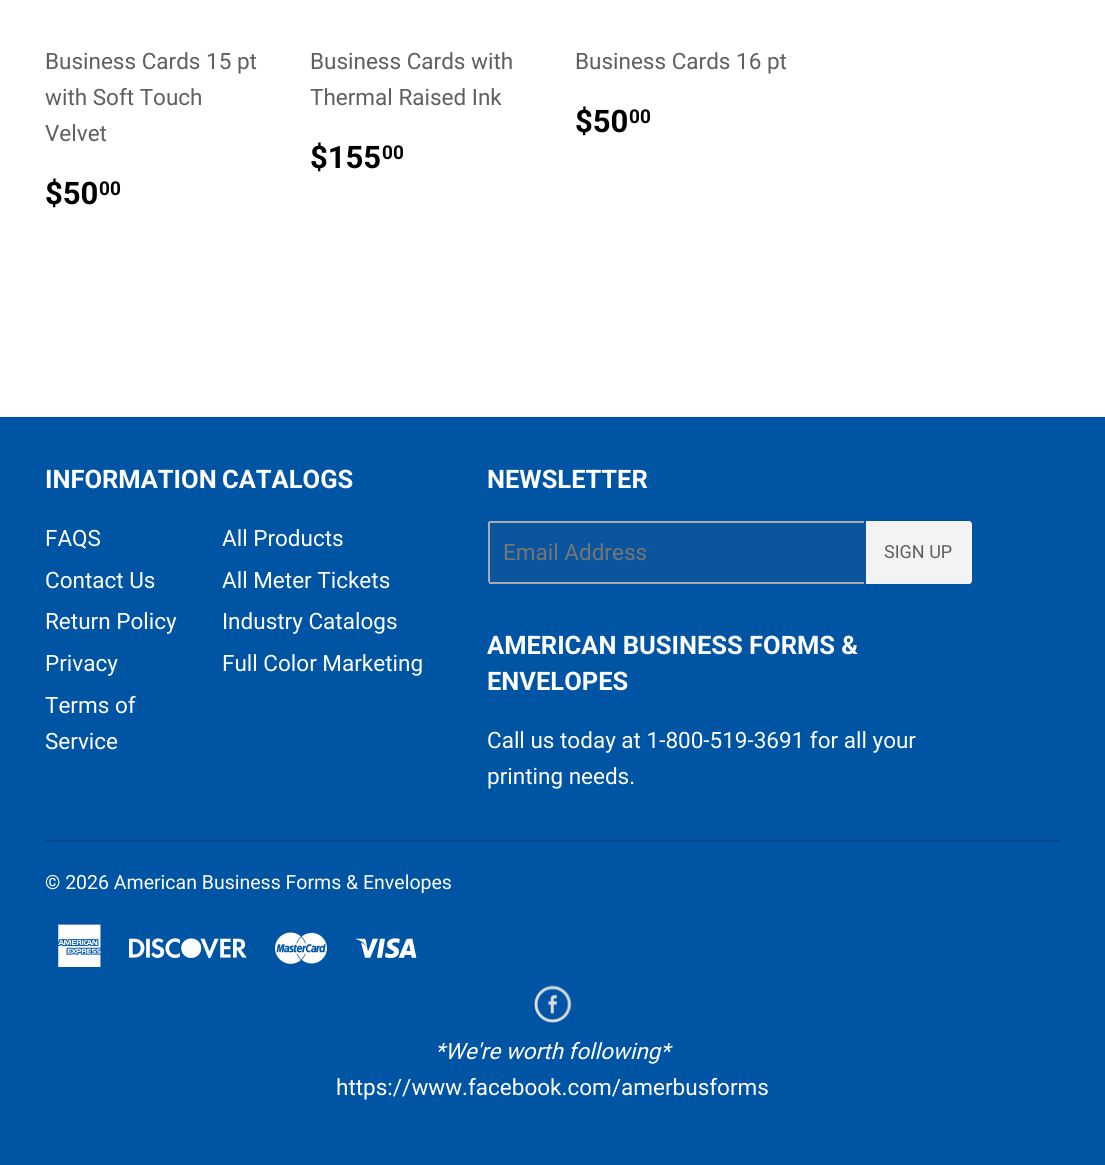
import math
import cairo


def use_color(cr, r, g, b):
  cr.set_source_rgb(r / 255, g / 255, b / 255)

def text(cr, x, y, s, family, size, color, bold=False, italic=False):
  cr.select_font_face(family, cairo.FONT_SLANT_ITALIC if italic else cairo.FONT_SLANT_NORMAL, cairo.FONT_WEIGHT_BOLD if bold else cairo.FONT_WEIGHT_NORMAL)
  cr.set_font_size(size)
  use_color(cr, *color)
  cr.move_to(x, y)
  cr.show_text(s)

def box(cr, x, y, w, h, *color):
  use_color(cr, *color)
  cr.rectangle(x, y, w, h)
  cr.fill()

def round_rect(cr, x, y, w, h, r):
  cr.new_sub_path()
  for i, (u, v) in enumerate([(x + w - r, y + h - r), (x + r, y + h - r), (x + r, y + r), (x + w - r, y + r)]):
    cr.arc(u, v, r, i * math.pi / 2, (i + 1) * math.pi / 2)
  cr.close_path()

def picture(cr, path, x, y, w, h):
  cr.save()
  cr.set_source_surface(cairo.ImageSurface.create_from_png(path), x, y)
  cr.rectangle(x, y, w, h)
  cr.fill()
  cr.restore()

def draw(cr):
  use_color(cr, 255, 255, 255)
  cr.paint()
  box(cr, 0, 417, 1105, 748, 0, 84, 164)
  use_color(cr, 10, 85, 157)
  round_rect(cr, 488, 521, 378, 63, 3)
  cr.fill()
  box(cr, 489, 521, 375, 2, 171, 171, 171)
  box(cr, 489, 582, 375, 2, 171, 171, 171)
  box(cr, 488, 522, 2, 60, 171, 171, 171)
  use_color(cr, 243, 243, 243)
  cr.new_path()
  cr.move_to(866, 521)
  cr.line_to(969, 521)
  cr.curve_to(970.5, 521, 972, 522.5, 972, 524)
  cr.line_to(972, 581)
  cr.curve_to(972, 582.5, 970.5, 584, 969, 584)
  cr.line_to(866, 584)
  cr.close_path()
  cr.fill()
  box(cr, 45, 840, 1016, 2, 0, 71, 139)
  picture(cr, "img_01.png", 58, 924, 43, 43)
  picture(cr, "img_02.png", 129, 938, 118, 21)
  picture(cr, "img_03.png", 275, 932, 52, 32)
  picture(cr, "img_04.png", 355, 938, 62, 20)
  picture(cr, "img_05.png", 534, 985, 38, 38)
  text(cr, 45, 69, "Business Cards 15 pt", "Roboto", 22.5, (95, 95, 95))
  text(cr, 45, 105, "with Soft Touch", "Roboto", 22.5, (95, 95, 95))
  text(cr, 45, 141, "Velvet", "Roboto", 22.5, (95, 95, 95))
  text(cr, 45, 204, "$50", "Roboto", 31, (0, 0, 0), bold=True)
  text(cr, 99, 195, "00", "Roboto", 19, (0, 0, 0), bold=True)
  text(cr, 310, 69, "Business Cards with", "Roboto", 22.5, (95, 95, 95))
  text(cr, 310, 105, "Thermal Raised Ink", "Roboto", 22.5, (95, 95, 95))
  text(cr, 310, 168, "$155", "Roboto", 31, (0, 0, 0), bold=True)
  text(cr, 382, 159, "00", "Roboto", 19, (0, 0, 0), bold=True)
  text(cr, 575, 69, "Business Cards 16 pt", "Roboto", 22.5, (95, 95, 95))
  text(cr, 575, 132, "$50", "Roboto", 31, (0, 0, 0), bold=True)
  text(cr, 629, 123, "00", "Roboto", 19, (0, 0, 0), bold=True)
  text(cr, 45, 488, "INFORMATION", "Roboto", 25.5, (255, 255, 255), bold=True)
  text(cr, 45, 546, "FAQS", "Roboto", 22.5, (255, 255, 255))
  text(cr, 45, 588, "Contact Us", "Roboto", 22.5, (255, 255, 255))
  text(cr, 45, 629, "Return Policy", "Roboto", 22.5, (255, 255, 255))
  text(cr, 45, 671, "Privacy", "Roboto", 22.5, (255, 255, 255))
  text(cr, 45, 713, "Terms of", "Roboto", 22.5, (255, 255, 255))
  text(cr, 45, 749, "Service", "Roboto", 22.5, (255, 255, 255))
  text(cr, 222, 488, "CATALOGS", "Roboto", 25.5, (255, 255, 255), bold=True)
  text(cr, 222, 546, "All Products", "Roboto", 22.5, (255, 255, 255))
  text(cr, 222, 588, "All Meter Tickets", "Roboto", 22.5, (255, 255, 255))
  text(cr, 222, 629, "Industry Catalogs", "Roboto", 22.5, (255, 255, 255))
  text(cr, 222, 671, "Full Color Marketing", "Roboto", 22.5, (255, 255, 255))
  text(cr, 487, 488, "NEWSLETTER", "Roboto", 25.5, (255, 255, 255), bold=True)
  text(cr, 503, 560, "Email Address", "Roboto", 22.5, (117, 117, 117))
  text(cr, 884, 558, "SIGN UP", "Roboto", 18, (95, 95, 95))
  text(cr, 487, 654, "AMERICAN BUSINESS FORMS &", "Roboto", 25.5, (255, 255, 255), bold=True)
  text(cr, 487, 690, "ENVELOPES", "Roboto", 25.5, (255, 255, 255), bold=True)
  text(cr, 487, 748, "Call us today at 1-800-519-3691 for all your", "Roboto", 22.5, (255, 255, 255))
  text(cr, 487, 784, "printing needs.", "Roboto", 22.5, (255, 255, 255))
  text(cr, 45, 889, "© 2026 American Business Forms & Envelopes", "Roboto", 19.5, (255, 255, 255))
  text(cr, 435, 1059, "*We're worth following*", "Roboto", 22.5, (255, 255, 255), italic=True)
  text(cr, 336, 1095, "https://www.facebook.com/amerbusforms", "Roboto", 22.5, (255, 255, 255))


surface = cairo.ImageSurface(cairo.FORMAT_RGB24, 1105, 1165)
cr = cairo.Context(surface)
options = cairo.FontOptions()
options.set_hint_metrics(cairo.HINT_METRICS_OFF)
options.set_hint_style(cairo.HINT_STYLE_NONE)
cr.set_font_options(options)
cr.set_miter_limit(4)
draw(cr)
surface.write_to_png("out.png")
